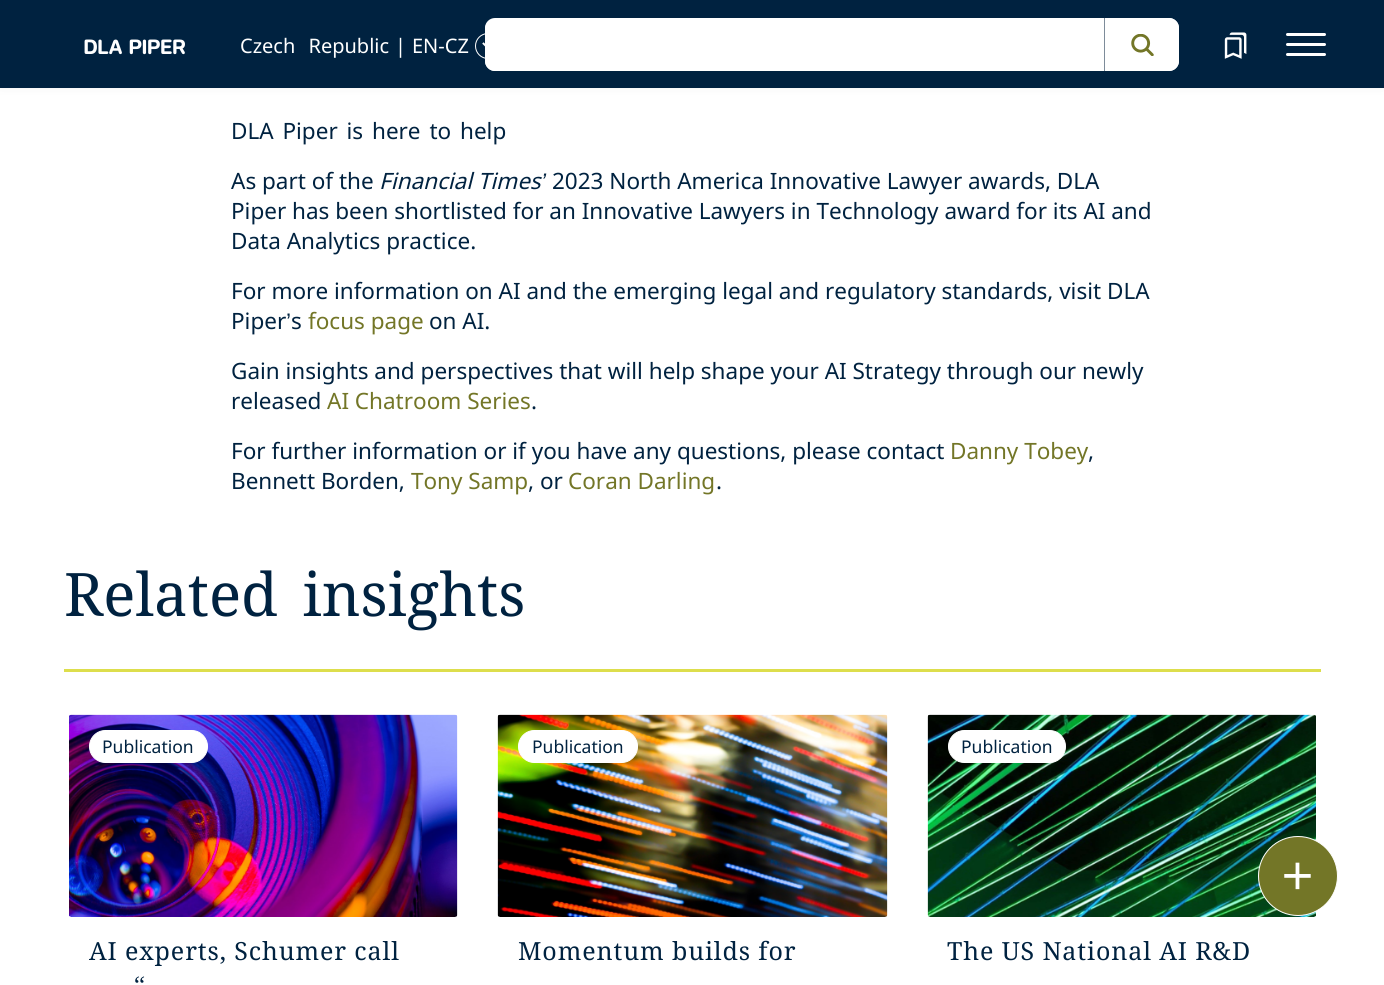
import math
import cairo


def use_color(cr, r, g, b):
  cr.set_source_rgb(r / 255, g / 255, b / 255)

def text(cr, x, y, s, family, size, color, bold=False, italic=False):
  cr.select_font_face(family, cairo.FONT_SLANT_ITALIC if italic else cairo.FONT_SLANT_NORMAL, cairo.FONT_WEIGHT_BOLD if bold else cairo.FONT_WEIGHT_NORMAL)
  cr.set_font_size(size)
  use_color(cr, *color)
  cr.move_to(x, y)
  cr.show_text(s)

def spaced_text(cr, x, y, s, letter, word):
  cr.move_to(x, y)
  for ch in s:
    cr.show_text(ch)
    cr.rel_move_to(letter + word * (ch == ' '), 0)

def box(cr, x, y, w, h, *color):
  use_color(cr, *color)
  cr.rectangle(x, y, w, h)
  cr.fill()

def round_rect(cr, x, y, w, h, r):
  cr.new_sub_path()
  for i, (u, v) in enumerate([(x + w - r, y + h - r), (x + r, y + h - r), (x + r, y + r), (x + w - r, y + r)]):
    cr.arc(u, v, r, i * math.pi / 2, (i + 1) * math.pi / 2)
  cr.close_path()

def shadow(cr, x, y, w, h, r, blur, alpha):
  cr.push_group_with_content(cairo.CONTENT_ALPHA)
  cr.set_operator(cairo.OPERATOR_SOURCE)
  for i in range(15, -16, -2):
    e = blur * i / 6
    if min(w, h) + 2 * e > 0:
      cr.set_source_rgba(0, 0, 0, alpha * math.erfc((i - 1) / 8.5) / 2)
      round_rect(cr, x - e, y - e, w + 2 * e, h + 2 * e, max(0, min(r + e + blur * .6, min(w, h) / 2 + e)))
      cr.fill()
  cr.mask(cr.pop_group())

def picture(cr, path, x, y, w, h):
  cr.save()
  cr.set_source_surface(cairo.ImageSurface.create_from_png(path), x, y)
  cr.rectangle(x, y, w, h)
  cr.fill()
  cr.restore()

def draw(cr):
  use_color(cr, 255, 255, 255)
  cr.paint()
  use_color(cr, 0, 12, 23)
  shadow(cr, 0, -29, 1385, 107, 0, 9.5, 0.15)
  box(cr, 0, 0, 1384, 88, 0, 34, 64)
  picture(cr, "img_01.png", 84, 39, 101, 16)
  cr.arc(488, 46, 12.5, 0, 2 * math.pi)
  use_color(cr, 255, 255, 255)
  cr.set_line_width(1)
  cr.stroke()
  picture(cr, "img_02.png", 482, 42, 3, 5)
  round_rect(cr, 485, 18, 694, 53, 10)
  cr.fill()
  cr.new_path()
  cr.move_to(495, 19)
  cr.line_to(1104, 19)
  cr.line_to(1104, 71)
  cr.line_to(495, 71)
  cr.curve_to(489.5, 71, 485, 66.5, 485, 61)
  cr.line_to(485, 29)
  cr.curve_to(485, 23.5, 489.5, 19, 495, 19)
  cr.close_path()
  cr.fill()
  cr.new_path()
  cr.move_to(1104, 18)
  cr.line_to(1169, 18)
  cr.curve_to(1174.5, 18, 1179, 22.5, 1179, 28)
  cr.line_to(1179, 61)
  cr.curve_to(1179, 66.5, 1174.5, 71, 1169, 71)
  cr.line_to(1104, 71)
  cr.close_path()
  cr.fill()
  box(cr, 1104, 18, 1, 53, 126, 140, 154)
  picture(cr, "img_03.png", 1131, 34, 23, 22)
  picture(cr, "img_04.png", 1224, 32, 23, 27)
  use_color(cr, 255, 255, 255)
  round_rect(cr, 1286, 33, 40, 3, 1.5)
  cr.fill()
  round_rect(cr, 1286, 43, 40, 3, 1.5)
  cr.fill()
  round_rect(cr, 1286, 53, 40, 3, 1.5)
  cr.fill()
  box(cr, 64, 669, 1257, 3, 221, 222, 76)
  picture(cr, "img_05.png", 69, 714, 389, 203)
  use_color(cr, 255, 255, 255)
  round_rect(cr, 89.5, 730.5, 118, 32, 16)
  cr.fill_preserve()
  cr.stroke()
  picture(cr, "img_06.png", 497, 714, 391, 203)
  round_rect(cr, 518.5, 730.5, 119, 32, 16)
  cr.fill_preserve()
  cr.stroke()
  picture(cr, "img_07.png", 927, 714, 389, 203)
  round_rect(cr, 948.5, 730.5, 117, 32, 16)
  cr.fill_preserve()
  cr.stroke()
  use_color(cr, 115, 118, 39)
  cr.arc(1298, 876, 39.5, 0, 2 * math.pi)
  cr.fill_preserve()
  use_color(cr, 255, 255, 255)
  cr.stroke()
  picture(cr, "img_08.png", 1284, 862, 27, 28)
  cr.select_font_face("Noto Sans")
  cr.set_font_size(20)
  spaced_text(cr, 240, 53, "Czech Republic", 0, 8)
  text(cr, 395, 53, "|", "Noto Sans", 20, (255, 255, 255))
  text(cr, 412, 53, "EN-CZ", "Noto Sans", 20, (255, 255, 255))
  cr.set_font_size(22.5)
  use_color(cr, 0, 34, 64)
  spaced_text(cr, 231, 139, "DLA Piper is here to help", 0, 3)
  text(cr, 231, 189, "As part of the", "Noto Sans", 22.5, (0, 34, 64))
  text(cr, 379, 189, "Financial Times", "Noto Sans", 22.5, (0, 34, 64), italic=True)
  text(cr, 541, 189, "’", "Liberation Sans", 22.5, (0, 34, 64), italic=True)
  text(cr, 552, 189, "2023 North America Innovative Lawyer awards, DLA", "Noto Sans", 22.5, (0, 34, 64))
  text(cr, 231, 219, "Piper has been shortlisted for an Innovative Lawyers in Technology award for its AI and", "Noto Sans", 22.5, (0, 34, 64))
  text(cr, 231, 249, "Data Analytics practice.", "Noto Sans", 22.5, (0, 34, 64))
  text(cr, 231, 299, "For more information on AI and the emerging legal and regulatory standards, visit DLA", "Noto Sans", 22.5, (0, 34, 64))
  text(cr, 231, 329, "Piper", "Noto Sans", 22.5, (0, 34, 64))
  text(cr, 286, 329, "’", "Liberation Sans", 22.5, (0, 34, 64))
  text(cr, 291, 329, "s", "Noto Sans", 22.5, (0, 34, 64))
  text(cr, 308, 329, "focus page", "Noto Sans", 22.5, (115, 118, 39))
  text(cr, 429, 329, "on AI.", "Noto Sans", 22.5, (0, 34, 64))
  text(cr, 231, 379, "Gain insights and perspectives that will help shape your AI Strategy through our newly", "Noto Sans", 22.5, (0, 34, 64))
  text(cr, 231, 409, "released", "Noto Sans", 22.5, (0, 34, 64))
  text(cr, 327, 409, "AI Chatroom Series", "Noto Sans", 22.5, (115, 118, 39))
  text(cr, 531, 409, ".", "Noto Sans", 22.5, (0, 34, 64))
  text(cr, 231, 459, "For further information or if you have any questions, please contact", "Noto Sans", 22.5, (0, 34, 64))
  text(cr, 950, 459, "Danny Tobey", "Noto Sans", 22.5, (115, 118, 39))
  text(cr, 1088, 459, ",", "Noto Sans", 22.5, (0, 34, 64))
  text(cr, 231, 489, "Bennett Borden,", "Noto Sans", 22.5, (0, 34, 64))
  text(cr, 411, 489, "Tony Samp", "Noto Sans", 22.5, (115, 118, 39))
  text(cr, 528, 489, ", or", "Noto Sans", 22.5, (0, 34, 64))
  text(cr, 568, 489, "Coran Darling", "Noto Sans", 22.5, (115, 118, 39))
  text(cr, 716, 489, ".", "Noto Sans", 22.5, (0, 34, 64))
  cr.select_font_face("Noto Serif")
  cr.set_font_size(60)
  spaced_text(cr, 64, 616, "Related insights", 0, 9)
  text(cr, 102, 753, "Publication", "Noto Sans", 17.5, (0, 34, 64))
  cr.select_font_face("Noto Serif")
  cr.set_font_size(25)
  spaced_text(cr, 89, 960, "AI experts, Schumer call", 0.9, 0)
  cr.select_font_face("Liberation Serif")
  spaced_text(cr, 134, 993, "“", 0.9, 0)
  text(cr, 532, 753, "Publication", "Noto Sans", 17.5, (0, 34, 64))
  cr.select_font_face("Noto Serif")
  cr.set_font_size(25)
  spaced_text(cr, 518, 960, "Momentum builds for", 0.9, 0)
  text(cr, 961, 753, "Publication", "Noto Sans", 17.5, (0, 34, 64))
  cr.select_font_face("Noto Serif")
  cr.set_font_size(25)
  spaced_text(cr, 947, 960, "The US National AI R&D", 0.9, 0)


surface = cairo.ImageSurface(cairo.FORMAT_RGB24, 1384, 985)
cr = cairo.Context(surface)
options = cairo.FontOptions()
options.set_hint_metrics(cairo.HINT_METRICS_OFF)
options.set_hint_style(cairo.HINT_STYLE_NONE)
cr.set_font_options(options)
cr.set_miter_limit(4)
draw(cr)
surface.write_to_png("out.png")
